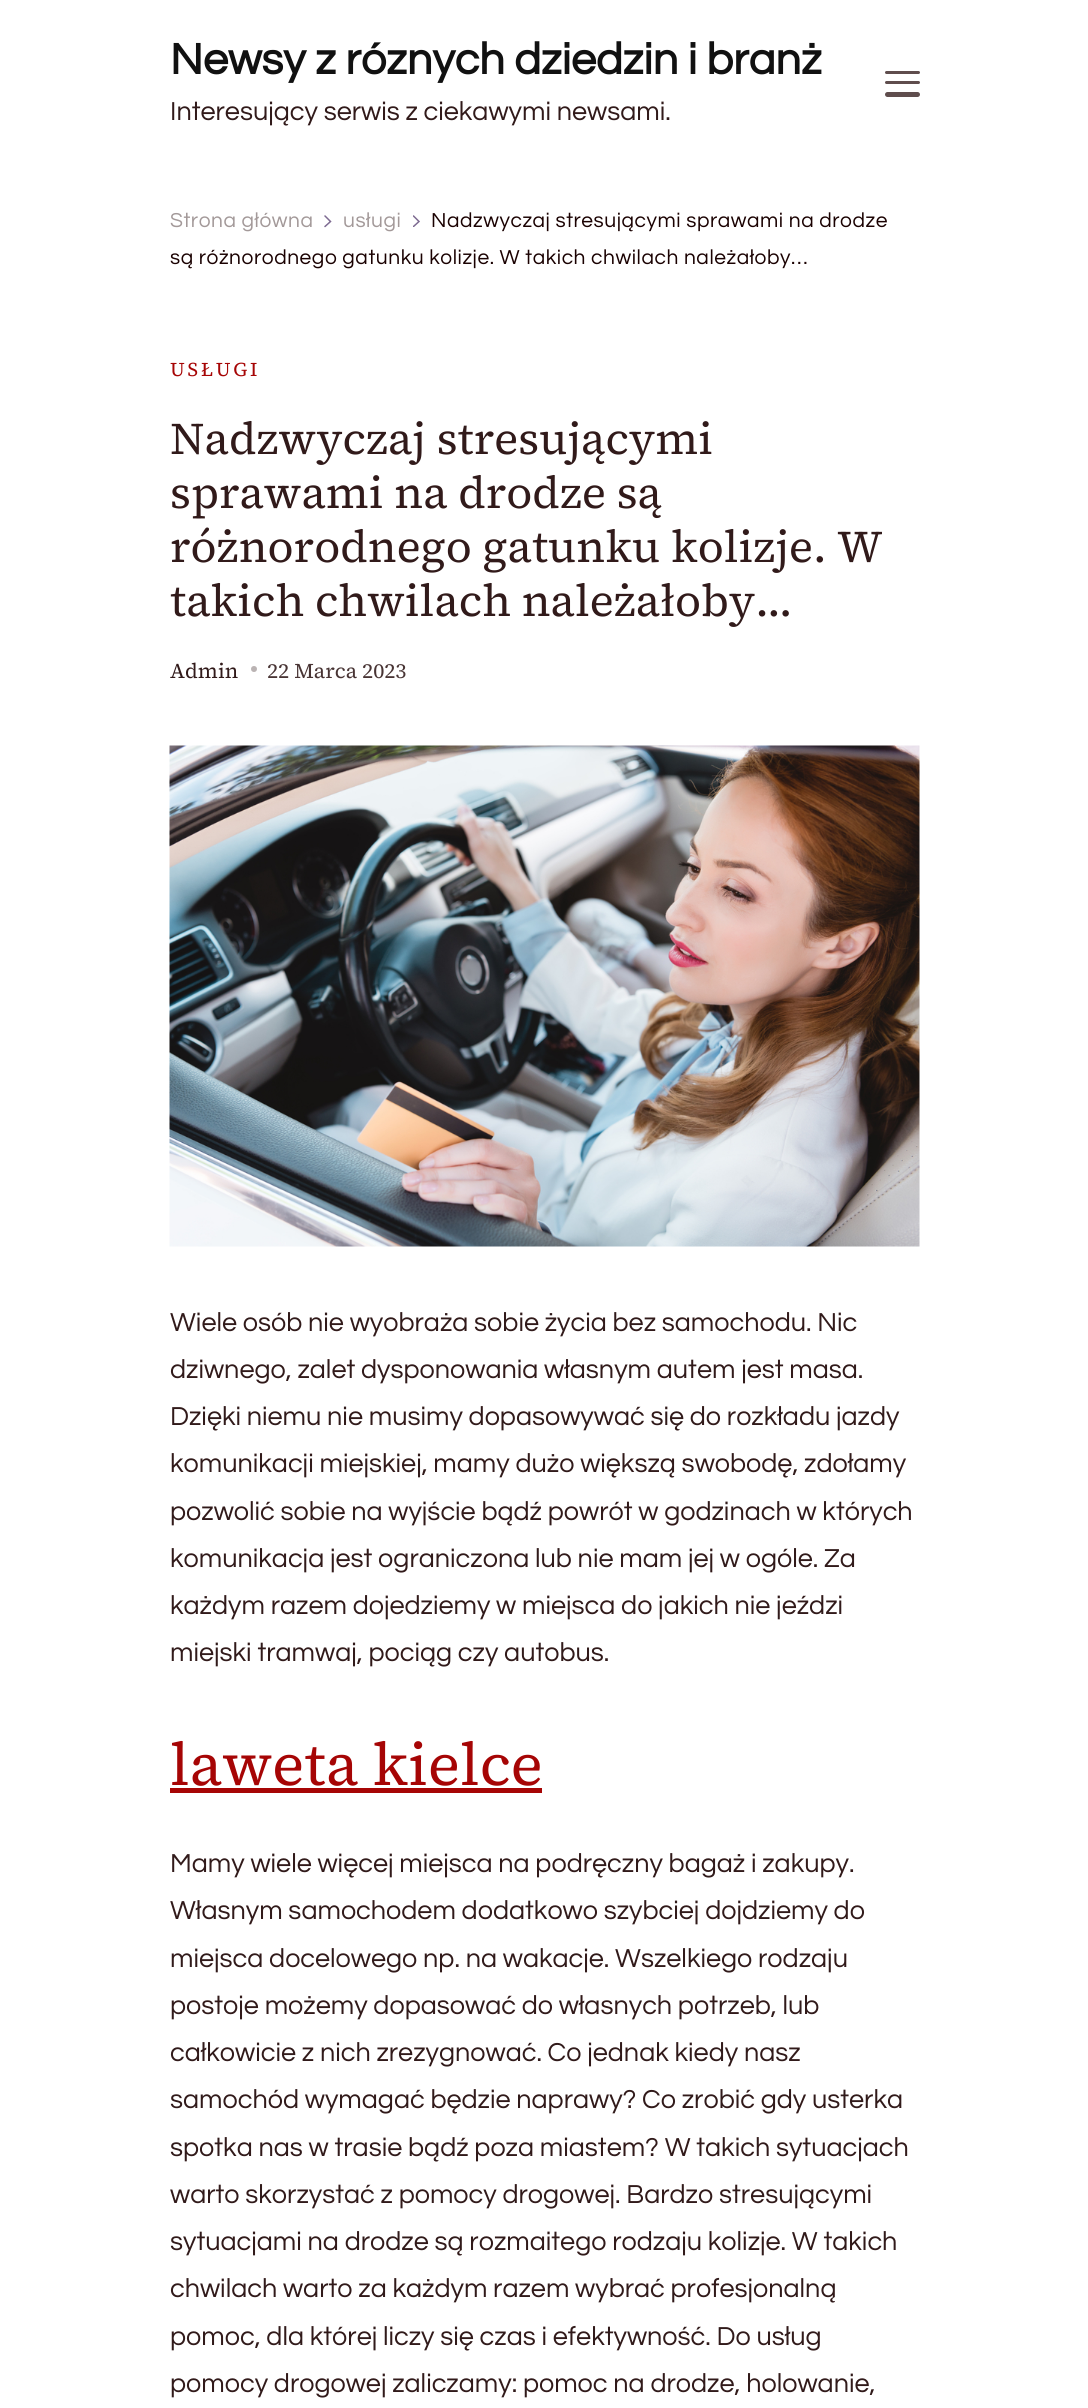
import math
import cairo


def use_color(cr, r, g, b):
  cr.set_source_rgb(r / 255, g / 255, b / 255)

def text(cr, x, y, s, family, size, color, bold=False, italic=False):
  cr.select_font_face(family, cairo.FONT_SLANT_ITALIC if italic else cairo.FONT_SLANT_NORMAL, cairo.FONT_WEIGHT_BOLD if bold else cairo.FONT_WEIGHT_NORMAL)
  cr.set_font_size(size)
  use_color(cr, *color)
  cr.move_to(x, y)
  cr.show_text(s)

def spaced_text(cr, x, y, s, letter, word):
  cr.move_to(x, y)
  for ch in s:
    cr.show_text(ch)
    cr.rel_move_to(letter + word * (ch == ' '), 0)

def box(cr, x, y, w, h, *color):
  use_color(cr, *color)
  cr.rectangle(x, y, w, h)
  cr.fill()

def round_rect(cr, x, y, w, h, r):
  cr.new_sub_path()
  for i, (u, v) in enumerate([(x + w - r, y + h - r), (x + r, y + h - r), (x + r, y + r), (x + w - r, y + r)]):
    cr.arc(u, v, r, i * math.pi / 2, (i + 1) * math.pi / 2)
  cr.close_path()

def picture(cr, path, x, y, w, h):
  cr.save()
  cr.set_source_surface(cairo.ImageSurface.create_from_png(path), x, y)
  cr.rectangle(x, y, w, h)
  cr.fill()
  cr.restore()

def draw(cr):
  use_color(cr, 255, 255, 255)
  cr.paint()
  use_color(cr, 95, 77, 77)
  round_rect(cr, 885, 71, 35, 3, 1.5)
  cr.fill()
  round_rect(cr, 885, 81, 35, 3, 1.5)
  cr.fill()
  round_rect(cr, 885, 92, 35, 5, 2.5)
  cr.fill()
  cr.save()
  cr.rectangle(413, 215, 7, 12)
  cr.clip()
  cr.new_path()
  cr.move_to(413.5, 216)
  cr.line_to(419, 221.5)
  cr.line_to(413.5, 226.5)
  use_color(cr, 125, 106, 145)
  cr.set_line_width(1.5)
  cr.set_line_cap(cairo.LINE_CAP_ROUND)
  cr.stroke()
  cr.restore()
  cr.new_path()
  cr.move_to(325, 216)
  cr.line_to(330.5, 221.5)
  cr.line_to(325, 226.5)
  use_color(cr, 125, 106, 145)
  cr.set_line_width(1.5)
  cr.set_line_cap(cairo.LINE_CAP_ROUND)
  cr.stroke()
  use_color(cr, 186, 179, 179)
  cr.arc(254, 669, 3, 0, 2 * math.pi)
  cr.fill()
  picture(cr, "img_01.png", 169, 745, 751, 502)
  box(cr, 170, 1788, 372, 5, 166, 5, 5)
  text(cr, 170, 74, "Newsy z róznych dziedzin i branż", "Questrial", 45, (17, 17, 17), bold=True)
  text(cr, 170, 120, "Interesujący serwis z ciekawymi newsami.", "Questrial", 27, (49, 26, 26))
  cr.set_font_size(21)
  use_color(cr, 163, 153, 153)
  spaced_text(cr, 170, 227, "Strona główna", 0.55, 0)
  use_color(cr, 26, 1, 1)
  spaced_text(cr, 431, 227, "Nadzwyczaj stresującymi sprawami na drodze", 0.55, 0)
  spaced_text(cr, 170, 264, "są różnorodnego gatunku kolizje. W takich chwilach należałoby…", 0.55, 0)
  use_color(cr, 163, 153, 153)
  spaced_text(cr, 343, 227, "usługi", 0.55, 0)
  cr.select_font_face("Source Serif 4")
  cr.set_font_size(19.5)
  use_color(cr, 166, 5, 5)
  spaced_text(cr, 170, 376, "USŁUGI", 2.75, 0)
  text(cr, 170, 454, "Nadzwyczaj stresującymi", "Source Serif 4", 45, (49, 26, 26))
  text(cr, 170, 508, "sprawami na drodze są", "Source Serif 4", 45, (49, 26, 26))
  text(cr, 170, 562, "różnorodnego gatunku kolizje. W", "Source Serif 4", 45, (49, 26, 26))
  text(cr, 170, 616, "takich chwilach należałoby…", "Source Serif 4", 45, (49, 26, 26))
  text(cr, 170, 678, "Admin", "Source Serif 4", 21, (49, 26, 26))
  text(cr, 267, 678, "22 Marca 2023", "Source Serif 4", 21, (72, 52, 52))
  text(cr, 170, 1331, "Wiele osób nie wyobraża sobie życia bez samochodu. Nic", "Questrial", 27, (49, 26, 26))
  text(cr, 170, 1378, "dziwnego, zalet dysponowania własnym autem jest masa.", "Questrial", 27, (49, 26, 26))
  text(cr, 170, 1425, "Dzięki niemu nie musimy dopasowywać się do rozkładu jazdy", "Questrial", 27, (49, 26, 26))
  text(cr, 170, 1472, "komunikacji miejskiej, mamy dużo większą swobodę, zdołamy", "Questrial", 27, (49, 26, 26))
  text(cr, 170, 1520, "pozwolić sobie na wyjście bądź powrót w godzinach w których", "Questrial", 27, (49, 26, 26))
  text(cr, 170, 1567, "komunikacja jest ograniczona lub nie mam jej w ogóle. Za", "Questrial", 27, (49, 26, 26))
  text(cr, 170, 1614, "każdym razem dojedziemy w miejsca do jakich nie jeździ", "Questrial", 27, (49, 26, 26))
  text(cr, 170, 1661, "miejski tramwaj, pociąg czy autobus.", "Questrial", 27, (49, 26, 26))
  text(cr, 170, 1785, "laweta kielce", "Source Serif 4", 60, (166, 5, 5))
  text(cr, 170, 1872, "Mamy wiele więcej miejsca na podręczny bagaż i zakupy.", "Questrial", 27, (49, 26, 26))
  text(cr, 170, 1919, "Własnym samochodem dodatkowo szybciej dojdziemy do", "Questrial", 27, (49, 26, 26))
  text(cr, 170, 1967, "miejsca docelowego np. na wakacje. Wszelkiego rodzaju", "Questrial", 27, (49, 26, 26))
  text(cr, 170, 2014, "postoje możemy dopasować do własnych potrzeb, lub", "Questrial", 27, (49, 26, 26))
  text(cr, 170, 2061, "całkowicie z nich zrezygnować. Co jednak kiedy nasz", "Questrial", 27, (49, 26, 26))
  text(cr, 170, 2108, "samochód wymagać będzie naprawy? Co zrobić gdy usterka", "Questrial", 27, (49, 26, 26))
  text(cr, 170, 2156, "spotka nas w trasie bądź poza miastem? W takich sytuacjach", "Questrial", 27, (49, 26, 26))
  text(cr, 170, 2203, "warto skorzystać z pomocy drogowej. Bardzo stresującymi", "Questrial", 27, (49, 26, 26))
  text(cr, 170, 2250, "sytuacjami na drodze są rozmaitego rodzaju kolizje. W takich", "Questrial", 27, (49, 26, 26))
  text(cr, 170, 2297, "chwilach warto za każdym razem wybrać profesjonalną", "Questrial", 27, (49, 26, 26))
  text(cr, 170, 2345, "pomoc, dla której liczy się czas i efektywność. Do usług", "Questrial", 27, (49, 26, 26))
  text(cr, 170, 2392, "pomocy drogowej zaliczamy: pomoc na drodze, holowanie,", "Questrial", 27, (49, 26, 26))


surface = cairo.ImageSurface(cairo.FORMAT_RGB24, 1088, 2408)
cr = cairo.Context(surface)
options = cairo.FontOptions()
options.set_hint_metrics(cairo.HINT_METRICS_OFF)
options.set_hint_style(cairo.HINT_STYLE_NONE)
cr.set_font_options(options)
cr.set_miter_limit(4)
draw(cr)
surface.write_to_png("out.png")
